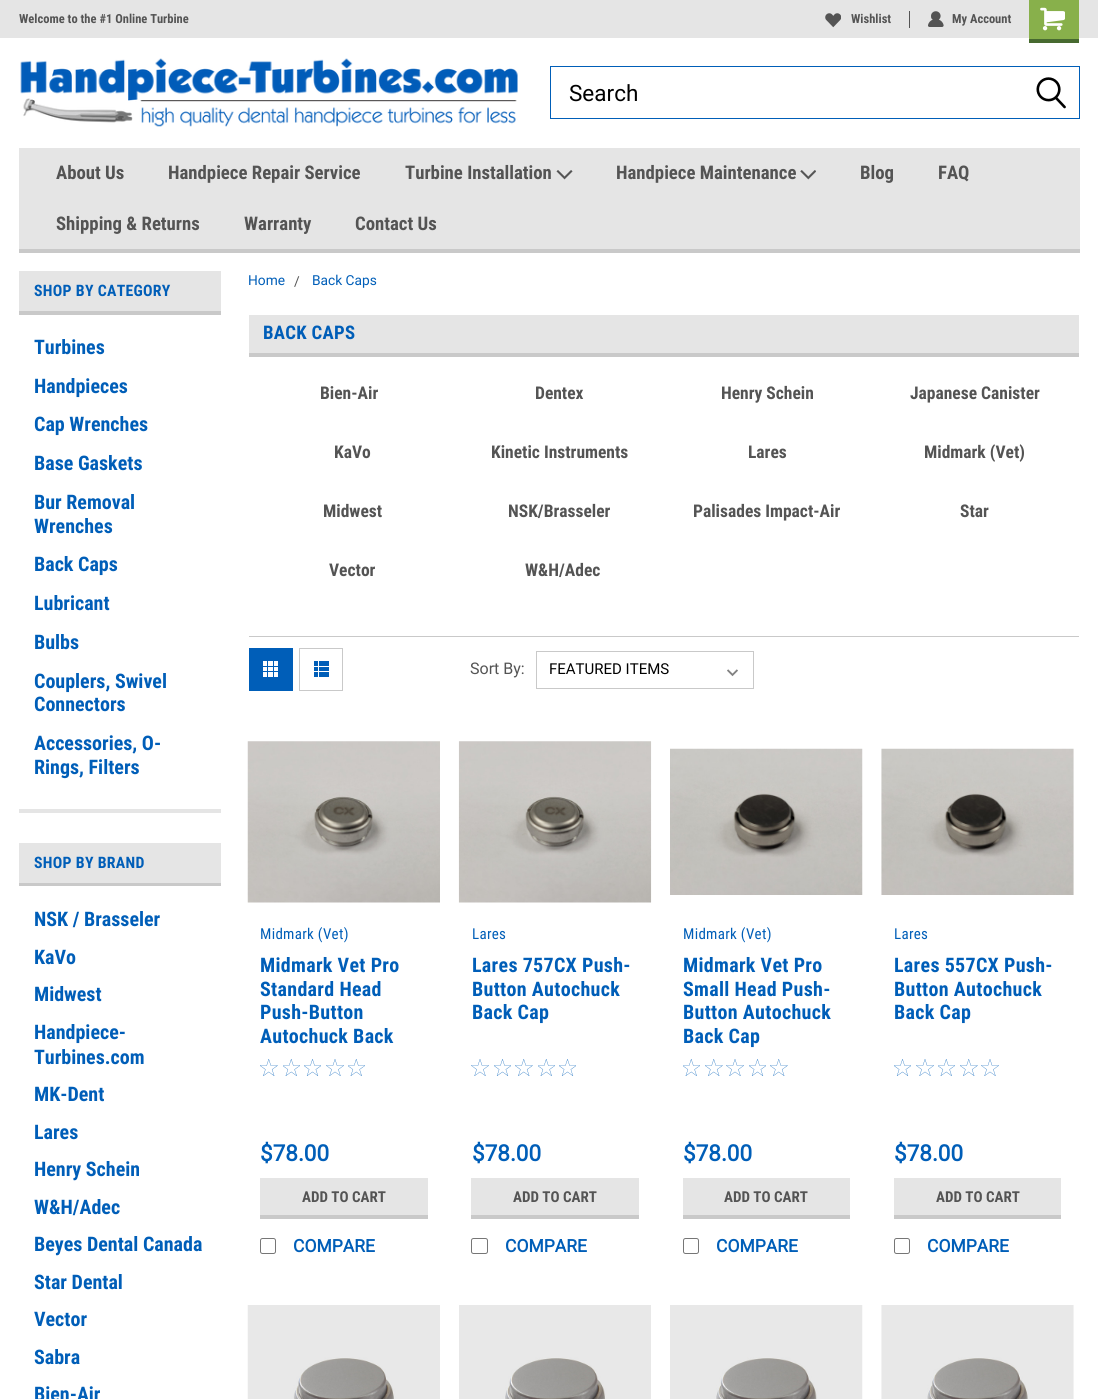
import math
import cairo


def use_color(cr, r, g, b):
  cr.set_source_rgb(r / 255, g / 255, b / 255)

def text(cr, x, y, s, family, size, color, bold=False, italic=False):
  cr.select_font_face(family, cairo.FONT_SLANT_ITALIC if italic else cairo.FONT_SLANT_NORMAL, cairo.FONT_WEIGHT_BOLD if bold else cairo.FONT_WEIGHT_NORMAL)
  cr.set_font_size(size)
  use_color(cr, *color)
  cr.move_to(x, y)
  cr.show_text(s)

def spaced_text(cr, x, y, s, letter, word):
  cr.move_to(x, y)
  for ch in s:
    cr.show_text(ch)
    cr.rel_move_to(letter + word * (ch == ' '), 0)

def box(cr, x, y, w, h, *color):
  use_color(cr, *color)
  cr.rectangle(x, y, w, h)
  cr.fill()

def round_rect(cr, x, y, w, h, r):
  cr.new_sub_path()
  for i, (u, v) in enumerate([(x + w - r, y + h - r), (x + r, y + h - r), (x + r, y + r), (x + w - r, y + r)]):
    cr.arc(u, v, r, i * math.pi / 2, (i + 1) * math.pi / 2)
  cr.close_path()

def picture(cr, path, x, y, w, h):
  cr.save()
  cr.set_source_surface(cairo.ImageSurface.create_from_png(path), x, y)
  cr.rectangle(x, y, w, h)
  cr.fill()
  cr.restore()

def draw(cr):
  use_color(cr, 255, 255, 255)
  cr.paint()
  box(cr, 0, 0, 1098, 38, 229, 229, 229)
  box(cr, 909, 11, 1, 17, 84, 84, 84)
  picture(cr, "img_01.png", 825, 13, 16, 15)
  picture(cr, "img_02.png", 928, 11, 16, 16)
  box(cr, 1029, 0, 50, 39, 136, 176, 75)
  box(cr, 1029, 39, 50, 4, 71, 106, 48)
  picture(cr, "img_03.png", 1040, 7, 25, 24)
  picture(cr, "img_04.png", 20, 58, 498, 69)
  cr.rectangle(550.5, 66.5, 529, 52)
  use_color(cr, 0, 94, 184)
  cr.set_line_width(1)
  cr.stroke()
  picture(cr, "img_05.png", 1036, 77, 30, 32)
  box(cr, 19, 148, 1061, 101, 229, 229, 229)
  box(cr, 19, 249, 1061, 4, 201, 201, 201)
  picture(cr, "img_06.png", 556, 170, 17, 10)
  picture(cr, "img_07.png", 800, 170, 16, 10)
  box(cr, 19, 809, 207, 4, 229, 229, 229)
  box(cr, 19, 271, 202, 40, 229, 229, 229)
  box(cr, 19, 311, 207, 4, 201, 201, 201)
  box(cr, 19, 843, 202, 40, 229, 229, 229)
  box(cr, 19, 883, 207, 3, 201, 201, 201)
  box(cr, 221, 311, 5, 575, 255, 255, 255)
  box(cr, 249, 315, 830, 38, 229, 229, 229)
  box(cr, 249, 353, 830, 4, 201, 201, 201)
  box(cr, 249, 636, 830, 1, 201, 201, 201)
  box(cr, 249, 648, 44, 43, 0, 94, 184)
  picture(cr, "img_08.png", 263, 661, 15, 16)
  cr.rectangle(299.5, 648.5, 43, 42)
  use_color(cr, 201, 201, 201)
  cr.stroke()
  picture(cr, "img_09.png", 314, 661, 15, 16)
  picture(cr, "img_10.png", 727, 669, 11, 8)
  cr.rectangle(536.5, 651.5, 217, 37)
  cr.stroke()
  picture(cr, "img_11.png", 247, 741, 193, 162)
  picture(cr, "img_12.png", 260, 1059, 18, 17)
  picture(cr, "img_13.png", 283, 1059, 17, 17)
  picture(cr, "img_14.png", 304, 1059, 17, 17)
  picture(cr, "img_15.png", 326, 1059, 18, 17)
  picture(cr, "img_13.png", 348, 1059, 17, 17)
  box(cr, 260, 1178, 168, 37, 229, 229, 229)
  box(cr, 260, 1215, 168, 4, 201, 201, 201)
  round_rect(cr, 260.5, 1238.5, 15, 15, 2)
  use_color(cr, 118, 118, 118)
  cr.stroke()
  picture(cr, "img_16.png", 458, 741, 194, 162)
  picture(cr, "img_15.png", 471, 1059, 18, 17)
  picture(cr, "img_14.png", 494, 1059, 17, 17)
  picture(cr, "img_12.png", 515, 1059, 18, 17)
  picture(cr, "img_13.png", 538, 1059, 17, 17)
  picture(cr, "img_14.png", 559, 1059, 17, 17)
  box(cr, 471, 1178, 168, 37, 229, 229, 229)
  box(cr, 471, 1215, 168, 4, 201, 201, 201)
  round_rect(cr, 471.5, 1238.5, 16, 15, 2)
  use_color(cr, 118, 118, 118)
  cr.stroke()
  picture(cr, "img_17.png", 670, 748, 193, 147)
  picture(cr, "img_13.png", 683, 1059, 17, 17)
  picture(cr, "img_12.png", 705, 1059, 18, 17)
  picture(cr, "img_15.png", 726, 1059, 18, 17)
  picture(cr, "img_14.png", 749, 1059, 17, 17)
  picture(cr, "img_12.png", 770, 1059, 18, 17)
  box(cr, 683, 1178, 167, 37, 229, 229, 229)
  box(cr, 683, 1215, 167, 4, 201, 201, 201)
  round_rect(cr, 683.5, 1238.5, 15, 15, 2)
  use_color(cr, 118, 118, 118)
  cr.stroke()
  picture(cr, "img_18.png", 881, 748, 193, 147)
  picture(cr, "img_14.png", 894, 1059, 17, 17)
  picture(cr, "img_15.png", 916, 1059, 18, 17)
  picture(cr, "img_13.png", 938, 1059, 17, 17)
  picture(cr, "img_12.png", 960, 1059, 18, 17)
  picture(cr, "img_15.png", 981, 1059, 18, 17)
  box(cr, 894, 1178, 167, 37, 229, 229, 229)
  box(cr, 894, 1215, 167, 4, 201, 201, 201)
  round_rect(cr, 894.5, 1238.5, 15, 15, 2)
  use_color(cr, 118, 118, 118)
  cr.stroke()
  picture(cr, "img_19.png", 247, 1305, 193, 94)
  picture(cr, "img_20.png", 459, 1305, 192, 94)
  picture(cr, "img_21.png", 670, 1305, 193, 94)
  picture(cr, "img_22.png", 881, 1305, 193, 94)
  text(cr, 19, 23, "Welcome to the #1 Online Turbine", "Roboto Condensed", 12.5, (84, 84, 84), bold=True)
  text(cr, 851, 23, "Wishlist", "Roboto Condensed", 12.5, (84, 84, 84), bold=True)
  text(cr, 952, 23, "My Account", "Roboto Condensed", 12.5, (84, 84, 84), bold=True)
  text(cr, 569, 101, "Search", "Roboto", 22.5, (0, 0, 0))
  text(cr, 56, 179, "About Us", "Roboto Condensed", 18.75, (84, 84, 84), bold=True)
  text(cr, 168, 179, "Handpiece Repair Service", "Roboto Condensed", 18.75, (84, 84, 84), bold=True)
  text(cr, 405, 179, "Turbine Installation", "Roboto Condensed", 18.75, (84, 84, 84), bold=True)
  text(cr, 616, 179, "Handpiece Maintenance", "Roboto Condensed", 18.75, (84, 84, 84), bold=True)
  text(cr, 860, 179, "Blog", "Roboto Condensed", 18.75, (84, 84, 84), bold=True)
  text(cr, 938, 179, "FAQ", "Roboto Condensed", 18.75, (84, 84, 84), bold=True)
  text(cr, 56, 230, "Shipping & Returns", "Roboto Condensed", 18.75, (84, 84, 84), bold=True)
  text(cr, 244, 230, "Warranty", "Roboto Condensed", 18.75, (84, 84, 84), bold=True)
  text(cr, 355, 230, "Contact Us", "Roboto Condensed", 18.75, (84, 84, 84), bold=True)
  cr.set_font_size(15.75)
  use_color(cr, 0, 94, 184)
  spaced_text(cr, 34, 296, "SHOP BY CATEGORY", 0.3, 0)
  text(cr, 34, 354, "Turbines", "Roboto Condensed", 20, (0, 94, 184), bold=True)
  text(cr, 34, 393, "Handpieces", "Roboto Condensed", 20, (0, 94, 184), bold=True)
  text(cr, 34, 431, "Cap Wrenches", "Roboto Condensed", 20, (0, 94, 184), bold=True)
  text(cr, 34, 470, "Base Gaskets", "Roboto Condensed", 20, (0, 94, 184), bold=True)
  text(cr, 34, 509, "Bur Removal", "Roboto Condensed", 20, (0, 94, 184), bold=True)
  text(cr, 34, 533, "Wrenches", "Roboto Condensed", 20, (0, 94, 184), bold=True)
  text(cr, 34, 571, "Back Caps", "Roboto Condensed", 20, (0, 94, 184), bold=True)
  text(cr, 34, 610, "Lubricant", "Roboto Condensed", 20, (0, 94, 184), bold=True)
  text(cr, 34, 649, "Bulbs", "Roboto Condensed", 20, (0, 94, 184), bold=True)
  text(cr, 34, 688, "Couplers, Swivel", "Roboto Condensed", 20, (0, 94, 184), bold=True)
  text(cr, 34, 711, "Connectors", "Roboto Condensed", 20, (0, 94, 184), bold=True)
  text(cr, 34, 750, "Accessories, O-", "Roboto Condensed", 20, (0, 94, 184), bold=True)
  text(cr, 34, 774, "Rings, Filters", "Roboto Condensed", 20, (0, 94, 184), bold=True)
  cr.set_font_size(15.75)
  spaced_text(cr, 34, 868, "SHOP BY BRAND", 0.3, 0)
  text(cr, 34, 926, "NSK / Brasseler", "Roboto Condensed", 20, (0, 94, 184), bold=True)
  text(cr, 34, 964, "KaVo", "Roboto Condensed", 20, (0, 94, 184), bold=True)
  text(cr, 34, 1001, "Midwest", "Roboto Condensed", 20, (0, 94, 184), bold=True)
  text(cr, 34, 1039, "Handpiece-", "Roboto Condensed", 20, (0, 94, 184), bold=True)
  text(cr, 34, 1064, "Turbines.com", "Roboto Condensed", 20, (0, 94, 184), bold=True)
  text(cr, 34, 1101, "MK-Dent", "Roboto Condensed", 20, (0, 94, 184), bold=True)
  text(cr, 34, 1139, "Lares", "Roboto Condensed", 20, (0, 94, 184), bold=True)
  text(cr, 34, 1176, "Henry Schein", "Roboto Condensed", 20, (0, 94, 184), bold=True)
  text(cr, 34, 1214, "W&H/Adec", "Roboto Condensed", 20, (0, 94, 184), bold=True)
  text(cr, 34, 1251, "Beyes Dental Canada", "Roboto Condensed", 20, (0, 94, 184), bold=True)
  text(cr, 34, 1289, "Star Dental", "Roboto Condensed", 20, (0, 94, 184), bold=True)
  text(cr, 34, 1326, "Vector", "Roboto Condensed", 20, (0, 94, 184), bold=True)
  text(cr, 34, 1364, "Sabra", "Roboto Condensed", 20, (0, 94, 184), bold=True)
  text(cr, 34, 1401, "Bien-Air", "Roboto Condensed", 20, (0, 94, 184), bold=True)
  text(cr, 248, 285, "Home", "Roboto", 13.75, (0, 94, 184))
  text(cr, 294, 286, "/", "Roboto", 13.75, (84, 84, 84))
  text(cr, 312, 285, "Back Caps", "Roboto", 13.75, (0, 94, 184))
  cr.select_font_face("Roboto Condensed", cairo.FONT_SLANT_NORMAL, cairo.FONT_WEIGHT_BOLD)
  cr.set_font_size(18.75)
  spaced_text(cr, 263, 339, "BACK CAPS", 0.3, 0)
  text(cr, 320, 399, "Bien-Air", "Roboto Condensed", 17.5, (84, 84, 84), bold=True)
  text(cr, 535, 399, "Dentex", "Roboto Condensed", 17.5, (84, 84, 84), bold=True)
  text(cr, 721, 399, "Henry Schein", "Roboto Condensed", 17.5, (84, 84, 84), bold=True)
  text(cr, 910, 399, "Japanese Canister", "Roboto Condensed", 17.5, (84, 84, 84), bold=True)
  text(cr, 334, 458, "KaVo", "Roboto Condensed", 17.5, (84, 84, 84), bold=True)
  text(cr, 491, 458, "Kinetic Instruments", "Roboto Condensed", 17.5, (84, 84, 84), bold=True)
  text(cr, 748, 458, "Lares", "Roboto Condensed", 17.5, (84, 84, 84), bold=True)
  text(cr, 924, 458, "Midmark (Vet)", "Roboto Condensed", 17.5, (84, 84, 84), bold=True)
  text(cr, 323, 517, "Midwest", "Roboto Condensed", 17.5, (84, 84, 84), bold=True)
  text(cr, 508, 517, "NSK/Brasseler", "Roboto Condensed", 17.5, (84, 84, 84), bold=True)
  text(cr, 693, 517, "Palisades Impact-Air", "Roboto Condensed", 17.5, (84, 84, 84), bold=True)
  text(cr, 960, 517, "Star", "Roboto Condensed", 17.5, (84, 84, 84), bold=True)
  text(cr, 329, 576, "Vector", "Roboto Condensed", 17.5, (84, 84, 84), bold=True)
  text(cr, 525, 576, "W&H/Adec", "Roboto Condensed", 17.5, (84, 84, 84), bold=True)
  text(cr, 470, 674, "Sort By:", "Roboto", 16, (84, 84, 84))
  text(cr, 549, 674, "FEATURED ITEMS", "Roboto", 15, (0, 0, 0))
  cr.select_font_face("Roboto Condensed")
  use_color(cr, 0, 94, 184)
  spaced_text(cr, 260, 939, "Midmark (Vet)", 0.3, 0)
  cr.select_font_face("Roboto Condensed", cairo.FONT_SLANT_NORMAL, cairo.FONT_WEIGHT_BOLD)
  cr.set_font_size(20)
  spaced_text(cr, 260, 972, "Midmark Vet Pro", 0.3, 0)
  spaced_text(cr, 260, 996, "Standard Head", 0.3, 0)
  spaced_text(cr, 260, 1019, "Push-Button", 0.3, 0)
  spaced_text(cr, 260, 1043, "Autochuck Back", 0.3, 0)
  text(cr, 260, 1161, "$78.00", "Roboto", 22.5, (0, 94, 184), bold=True)
  text(cr, 302, 1202, "ADD TO CART", "Roboto Condensed", 15, (84, 84, 84), bold=True)
  text(cr, 293, 1252, "COMPARE", "Roboto", 17.5, (0, 94, 184), bold=True)
  cr.select_font_face("Roboto Condensed")
  cr.set_font_size(15)
  spaced_text(cr, 472, 939, "Lares", 0.3, 0)
  cr.select_font_face("Roboto Condensed", cairo.FONT_SLANT_NORMAL, cairo.FONT_WEIGHT_BOLD)
  cr.set_font_size(20)
  spaced_text(cr, 472, 972, "Lares 757CX Push-", 0.3, 0)
  spaced_text(cr, 472, 996, "Button Autochuck", 0.3, 0)
  spaced_text(cr, 472, 1019, "Back Cap", 0.3, 0)
  text(cr, 472, 1161, "$78.00", "Roboto", 22.5, (0, 94, 184), bold=True)
  text(cr, 513, 1202, "ADD TO CART", "Roboto Condensed", 15, (84, 84, 84), bold=True)
  text(cr, 505, 1252, "COMPARE", "Roboto", 17.5, (0, 94, 184), bold=True)
  cr.select_font_face("Roboto Condensed")
  cr.set_font_size(15)
  spaced_text(cr, 683, 939, "Midmark (Vet)", 0.3, 0)
  cr.select_font_face("Roboto Condensed", cairo.FONT_SLANT_NORMAL, cairo.FONT_WEIGHT_BOLD)
  cr.set_font_size(20)
  spaced_text(cr, 683, 972, "Midmark Vet Pro", 0.3, 0)
  spaced_text(cr, 683, 996, "Small Head Push-", 0.3, 0)
  spaced_text(cr, 683, 1019, "Button Autochuck", 0.3, 0)
  spaced_text(cr, 683, 1043, "Back Cap", 0.3, 0)
  text(cr, 683, 1161, "$78.00", "Roboto", 22.5, (0, 94, 184), bold=True)
  text(cr, 724, 1202, "ADD TO CART", "Roboto Condensed", 15, (84, 84, 84), bold=True)
  text(cr, 716, 1252, "COMPARE", "Roboto", 17.5, (0, 94, 184), bold=True)
  cr.select_font_face("Roboto Condensed")
  cr.set_font_size(15)
  spaced_text(cr, 894, 939, "Lares", 0.3, 0)
  cr.select_font_face("Roboto Condensed", cairo.FONT_SLANT_NORMAL, cairo.FONT_WEIGHT_BOLD)
  cr.set_font_size(20)
  spaced_text(cr, 894, 972, "Lares 557CX Push-", 0.3, 0)
  spaced_text(cr, 894, 996, "Button Autochuck", 0.3, 0)
  spaced_text(cr, 894, 1019, "Back Cap", 0.3, 0)
  text(cr, 894, 1161, "$78.00", "Roboto", 22.5, (0, 94, 184), bold=True)
  text(cr, 936, 1202, "ADD TO CART", "Roboto Condensed", 15, (84, 84, 84), bold=True)
  text(cr, 927, 1252, "COMPARE", "Roboto", 17.5, (0, 94, 184), bold=True)


surface = cairo.ImageSurface(cairo.FORMAT_RGB24, 1098, 1399)
cr = cairo.Context(surface)
options = cairo.FontOptions()
options.set_hint_metrics(cairo.HINT_METRICS_OFF)
options.set_hint_style(cairo.HINT_STYLE_NONE)
cr.set_font_options(options)
cr.set_miter_limit(4)
draw(cr)
surface.write_to_png("out.png")
